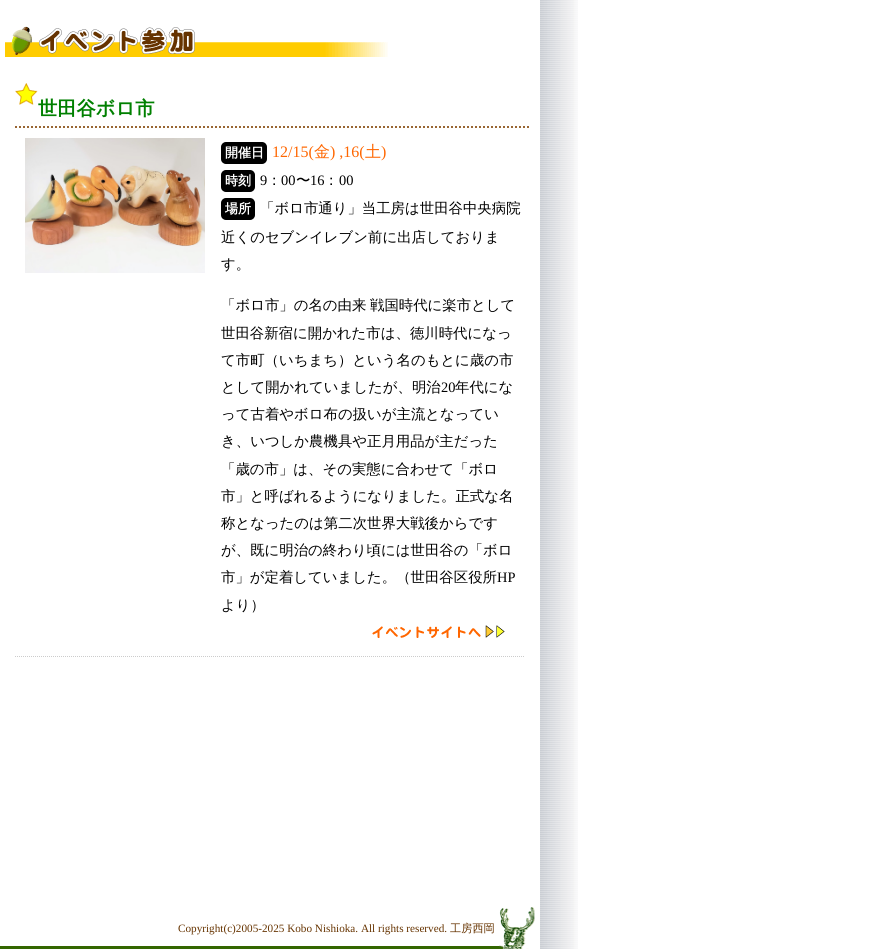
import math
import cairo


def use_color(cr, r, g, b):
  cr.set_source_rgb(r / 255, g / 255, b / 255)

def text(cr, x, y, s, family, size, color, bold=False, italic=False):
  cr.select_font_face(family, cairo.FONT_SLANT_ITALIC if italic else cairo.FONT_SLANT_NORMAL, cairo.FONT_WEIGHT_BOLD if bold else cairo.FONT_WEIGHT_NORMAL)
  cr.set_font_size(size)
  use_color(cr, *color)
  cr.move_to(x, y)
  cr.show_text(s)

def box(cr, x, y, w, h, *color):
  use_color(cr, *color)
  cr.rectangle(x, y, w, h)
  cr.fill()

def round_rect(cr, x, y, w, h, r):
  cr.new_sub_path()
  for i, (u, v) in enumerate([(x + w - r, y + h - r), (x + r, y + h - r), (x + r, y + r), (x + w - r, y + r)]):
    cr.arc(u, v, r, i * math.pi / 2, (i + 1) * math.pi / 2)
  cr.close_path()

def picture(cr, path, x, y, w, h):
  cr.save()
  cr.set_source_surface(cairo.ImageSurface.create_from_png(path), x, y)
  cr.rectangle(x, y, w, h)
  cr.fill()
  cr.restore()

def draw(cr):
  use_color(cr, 255, 255, 255)
  cr.paint()
  picture(cr, "img_01.png", 540, 0, 38, 949)
  picture(cr, "img_02.png", 5, 26, 383, 31)
  cr.new_path()
  cr.move_to(15, 127)
  cr.line_to(530, 127)
  use_color(cr, 153, 102, 51)
  cr.set_dash([2, 2])
  cr.stroke()
  picture(cr, "img_03.png", 15, 83, 23, 22)
  cr.new_path()
  cr.move_to(15, 656.5)
  cr.line_to(525, 656.5)
  use_color(cr, 204, 204, 204)
  cr.set_line_width(1)
  cr.set_dash([1, 1])
  cr.stroke()
  picture(cr, "img_04.png", 25, 138, 180, 135)
  use_color(cr, 0, 0, 0)
  round_rect(cr, 222, 143, 44, 20, 4)
  cr.fill_preserve()
  cr.set_line_width(2)
  cr.set_dash([])
  cr.stroke()
  round_rect(cr, 222, 171, 32, 20, 4)
  cr.fill_preserve()
  cr.stroke()
  round_rect(cr, 222, 199, 32, 20, 4)
  cr.fill_preserve()
  cr.stroke()
  picture(cr, "img_05.png", 372, 625, 133, 13)
  box(cr, 0, 946, 499, 3, 51, 102, 0)
  picture(cr, "img_06.png", 499, 907, 36, 42)
  text(cr, 38, 115, "世田谷ボロ市", "WenQuanYi Zen Hei", 19.25, (0, 128, 0), bold=True)
  text(cr, 225, 157, "開催日", "WenQuanYi Zen Hei", 13, (255, 255, 255), bold=True)
  text(cr, 272, 157, "12/15(", "Liberation Serif", 16, (255, 102, 0))
  text(cr, 314, 157, "金", "WenQuanYi Zen Hei Medium", 16, (255, 102, 0))
  text(cr, 330, 157, ") ,16(", "Liberation Serif", 16, (255, 102, 0))
  text(cr, 365, 157, "土", "WenQuanYi Zen Hei Medium", 16, (255, 102, 0))
  text(cr, 381, 157, ")", "Liberation Serif", 16, (255, 102, 0))
  text(cr, 225, 185, "時刻", "WenQuanYi Zen Hei", 13, (255, 255, 255), bold=True)
  text(cr, 260, 185, "9", "Liberation Serif", 14.4, (0, 0, 0))
  text(cr, 267, 185, "：", "WenQuanYi Zen Hei Medium", 14.4, (0, 0, 0))
  text(cr, 281, 185, "00", "Liberation Serif", 14.4, (0, 0, 0))
  text(cr, 296, 185, "〜", "WenQuanYi Zen Hei Medium", 14.4, (0, 0, 0))
  text(cr, 310, 185, "16", "Liberation Serif", 14.4, (0, 0, 0))
  text(cr, 324, 185, "：", "WenQuanYi Zen Hei Medium", 14.4, (0, 0, 0))
  text(cr, 339, 185, "00", "Liberation Serif", 14.4, (0, 0, 0))
  text(cr, 225, 213, "場所", "WenQuanYi Zen Hei", 13, (255, 255, 255), bold=True)
  text(cr, 260, 213, "「ボロ市通り」当工房は世田谷中央病院", "WenQuanYi Zen Hei Medium", 14.4, (0, 0, 0))
  text(cr, 221, 242, "近くのセブンイレブン前に出店しておりま", "WenQuanYi Zen Hei Medium", 14.4, (0, 0, 0))
  text(cr, 221, 269, "す。", "WenQuanYi Zen Hei Medium", 14.4, (0, 0, 0))
  text(cr, 221, 310, "「ボロ市」の名の由来", "WenQuanYi Zen Hei Medium", 14.4, (0, 0, 0))
  text(cr, 370, 310, "戦国時代に楽市として", "WenQuanYi Zen Hei Medium", 14.4, (0, 0, 0))
  text(cr, 221, 338, "世田谷新宿に開かれた市は、徳川時代になっ", "WenQuanYi Zen Hei Medium", 14.4, (0, 0, 0))
  text(cr, 221, 365, "て市町（いちまち）という名のもとに歳の市", "WenQuanYi Zen Hei Medium", 14.4, (0, 0, 0))
  text(cr, 221, 392, "として開かれていましたが、明治", "WenQuanYi Zen Hei Medium", 14.4, (0, 0, 0))
  text(cr, 441, 392, "20", "Liberation Serif", 14.4, (0, 0, 0))
  text(cr, 455, 392, "年代にな", "WenQuanYi Zen Hei Medium", 14.4, (0, 0, 0))
  text(cr, 221, 419, "って古着やボロ布の扱いが主流となってい", "WenQuanYi Zen Hei Medium", 14.4, (0, 0, 0))
  text(cr, 221, 446, "き、いつしか農機具や正月用品が主だった", "WenQuanYi Zen Hei Medium", 14.4, (0, 0, 0))
  text(cr, 221, 474, "「歳の市」は、その実態に合わせて「ボロ", "WenQuanYi Zen Hei Medium", 14.4, (0, 0, 0))
  text(cr, 221, 501, "市」と呼ばれるようになりました。正式な名", "WenQuanYi Zen Hei Medium", 14.4, (0, 0, 0))
  text(cr, 221, 528, "称となったのは第二次世界大戦後からです", "WenQuanYi Zen Hei Medium", 14.4, (0, 0, 0))
  text(cr, 221, 555, "が、既に明治の終わり頃には世田谷の「ボロ", "WenQuanYi Zen Hei Medium", 14.4, (0, 0, 0))
  text(cr, 221, 582, "市」が定着していました。（世田谷区役所", "WenQuanYi Zen Hei Medium", 14.4, (0, 0, 0))
  text(cr, 497, 582, "HP", "Liberation Serif", 14.4, (0, 0, 0))
  text(cr, 221, 610, "より）", "WenQuanYi Zen Hei Medium", 14.4, (0, 0, 0))
  text(cr, 178, 932, "Copyright(c)2005-2025 Kobo Nishioka. All rights reserved.", "Liberation Serif", 11.2, (102, 51, 0))
  text(cr, 450, 932, "工房西岡", "WenQuanYi Zen Hei Medium", 11.2, (102, 51, 0))


surface = cairo.ImageSurface(cairo.FORMAT_RGB24, 888, 949)
cr = cairo.Context(surface)
options = cairo.FontOptions()
options.set_hint_metrics(cairo.HINT_METRICS_OFF)
options.set_hint_style(cairo.HINT_STYLE_NONE)
cr.set_font_options(options)
cr.set_miter_limit(4)
draw(cr)
surface.write_to_png("out.png")
